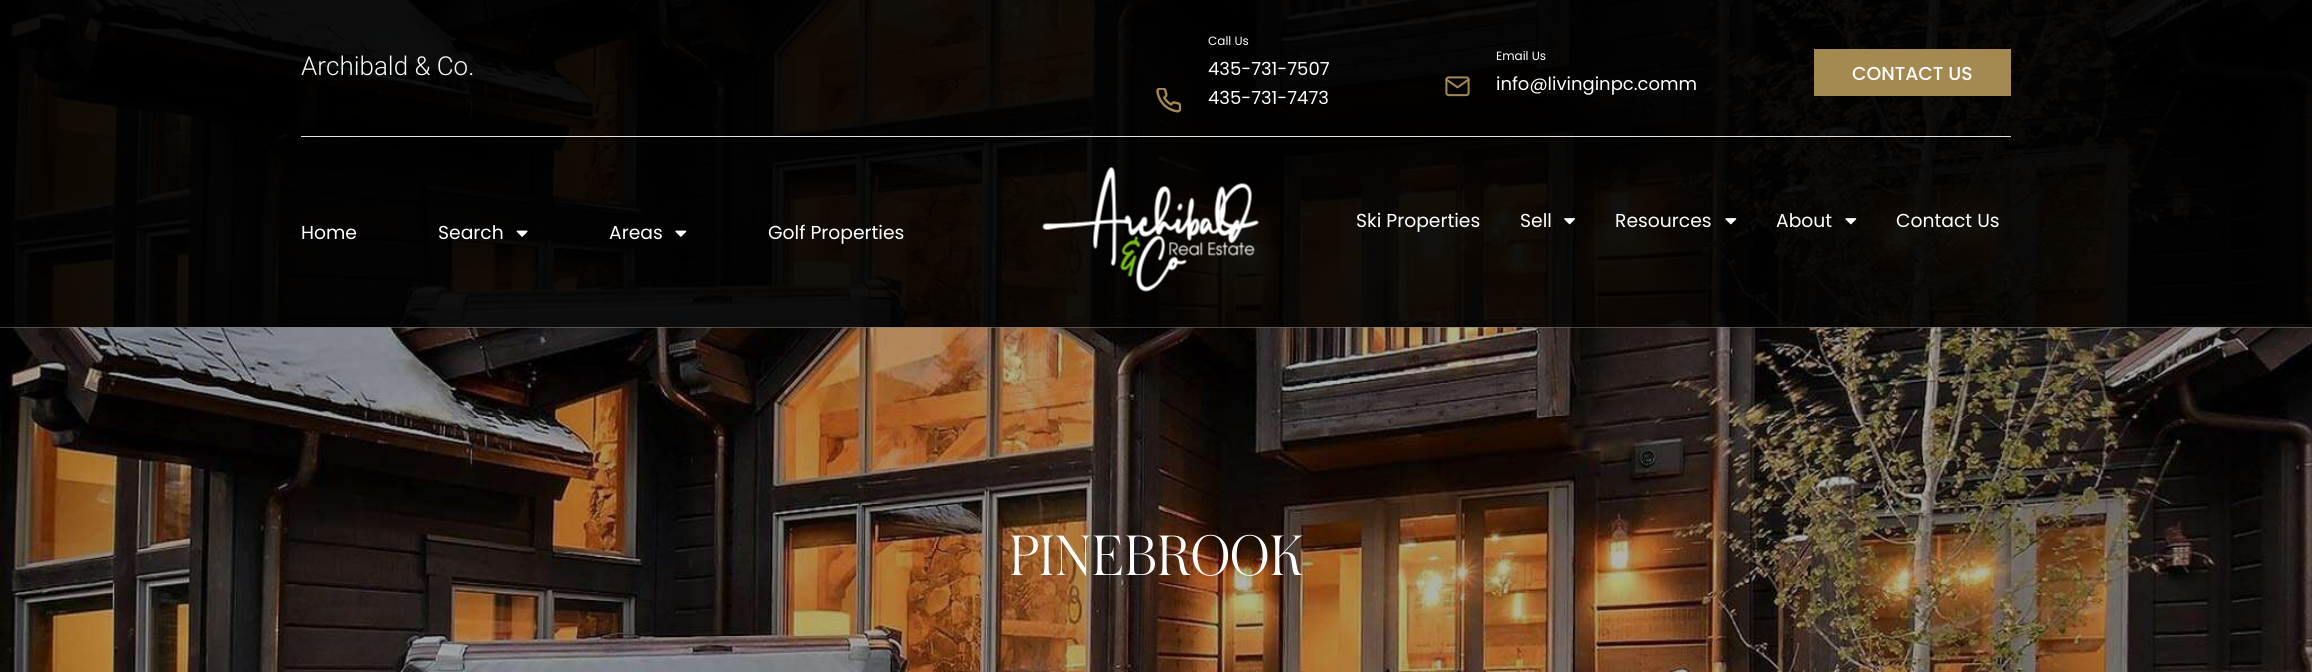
import math
import cairo


def use_color(cr, r, g, b):
  cr.set_source_rgb(r / 255, g / 255, b / 255)

def text(cr, x, y, s, family, size, color, bold=False, italic=False):
  cr.select_font_face(family, cairo.FONT_SLANT_ITALIC if italic else cairo.FONT_SLANT_NORMAL, cairo.FONT_WEIGHT_BOLD if bold else cairo.FONT_WEIGHT_NORMAL)
  cr.set_font_size(size)
  use_color(cr, *color)
  cr.move_to(x, y)
  cr.show_text(s)

def box(cr, x, y, w, h, *color):
  use_color(cr, *color)
  cr.rectangle(x, y, w, h)
  cr.fill()

def picture(cr, path, x, y, w, h):
  cr.save()
  cr.set_source_surface(cairo.ImageSurface.create_from_png(path), x, y)
  cr.rectangle(x, y, w, h)
  cr.fill()
  cr.restore()

def draw(cr):
  use_color(cr, 255, 255, 255)
  cr.paint()
  picture(cr, "img_01.png", 0, 0, 2312, 328)
  box(cr, 301, 136, 1710, 1, 226, 226, 226)
  picture(cr, "img_02.png", 1156, 88, 25, 25)
  picture(cr, "img_03.png", 1445, 76, 25, 21)
  box(cr, 1814, 49, 197, 47, 164, 138, 81)
  picture(cr, "img_04.png", 1042, 167, 217, 125)
  picture(cr, "img_05.png", 1564, 218, 11, 7)
  picture(cr, "img_06.png", 1725, 218, 12, 7)
  picture(cr, "img_07.png", 1845, 218, 12, 7)
  picture(cr, "img_08.png", 516, 230, 12, 7)
  picture(cr, "img_09.png", 675, 230, 12, 7)
  picture(cr, "img_10.png", 0, 327, 2312, 345)
  text(cr, 301, 75, "Archibald & Co.", "Roboto Light", 26, (244, 250, 250))
  text(cr, 1208, 45, "Call Us", "Poppins", 12, (255, 255, 255))
  text(cr, 1208, 75, "435-731-7507", "Poppins", 18, (255, 255, 255))
  text(cr, 1208, 104, "435-731-7473", "Poppins", 18, (255, 255, 255))
  text(cr, 1496, 60, "Email Us", "Poppins", 12, (255, 255, 255))
  text(cr, 1496, 90, "info@livinginpc.comm", "Poppins", 18, (255, 255, 255))
  text(cr, 1852, 80, "CONTACT US", "Poppins Medium", 18.75, (255, 255, 255))
  text(cr, 1356, 227, "Ski Properties", "Poppins", 18.75, (255, 255, 255))
  text(cr, 1520, 227, "Sell", "Poppins", 18.75, (255, 255, 255))
  text(cr, 1615, 227, "Resources", "Poppins", 18.75, (255, 255, 255))
  text(cr, 1776, 227, "About", "Poppins", 18.75, (255, 255, 255))
  text(cr, 1896, 227, "Contact Us", "Poppins", 18.75, (255, 255, 255))
  text(cr, 301, 239, "Home", "Poppins", 18.75, (255, 255, 255))
  text(cr, 438, 239, "Search", "Poppins", 18.75, (255, 255, 255))
  text(cr, 609, 239, "Areas", "Poppins", 18.75, (255, 255, 255))
  text(cr, 768, 239, "Golf Properties", "Poppins", 18.75, (255, 255, 255))
  text(cr, 1009, 575, "PINEBROOK", "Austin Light", 60, (255, 255, 255))


surface = cairo.ImageSurface(cairo.FORMAT_RGB24, 2312, 672)
cr = cairo.Context(surface)
options = cairo.FontOptions()
options.set_hint_metrics(cairo.HINT_METRICS_OFF)
options.set_hint_style(cairo.HINT_STYLE_NONE)
cr.set_font_options(options)
cr.set_miter_limit(4)
draw(cr)
surface.write_to_png("out.png")
